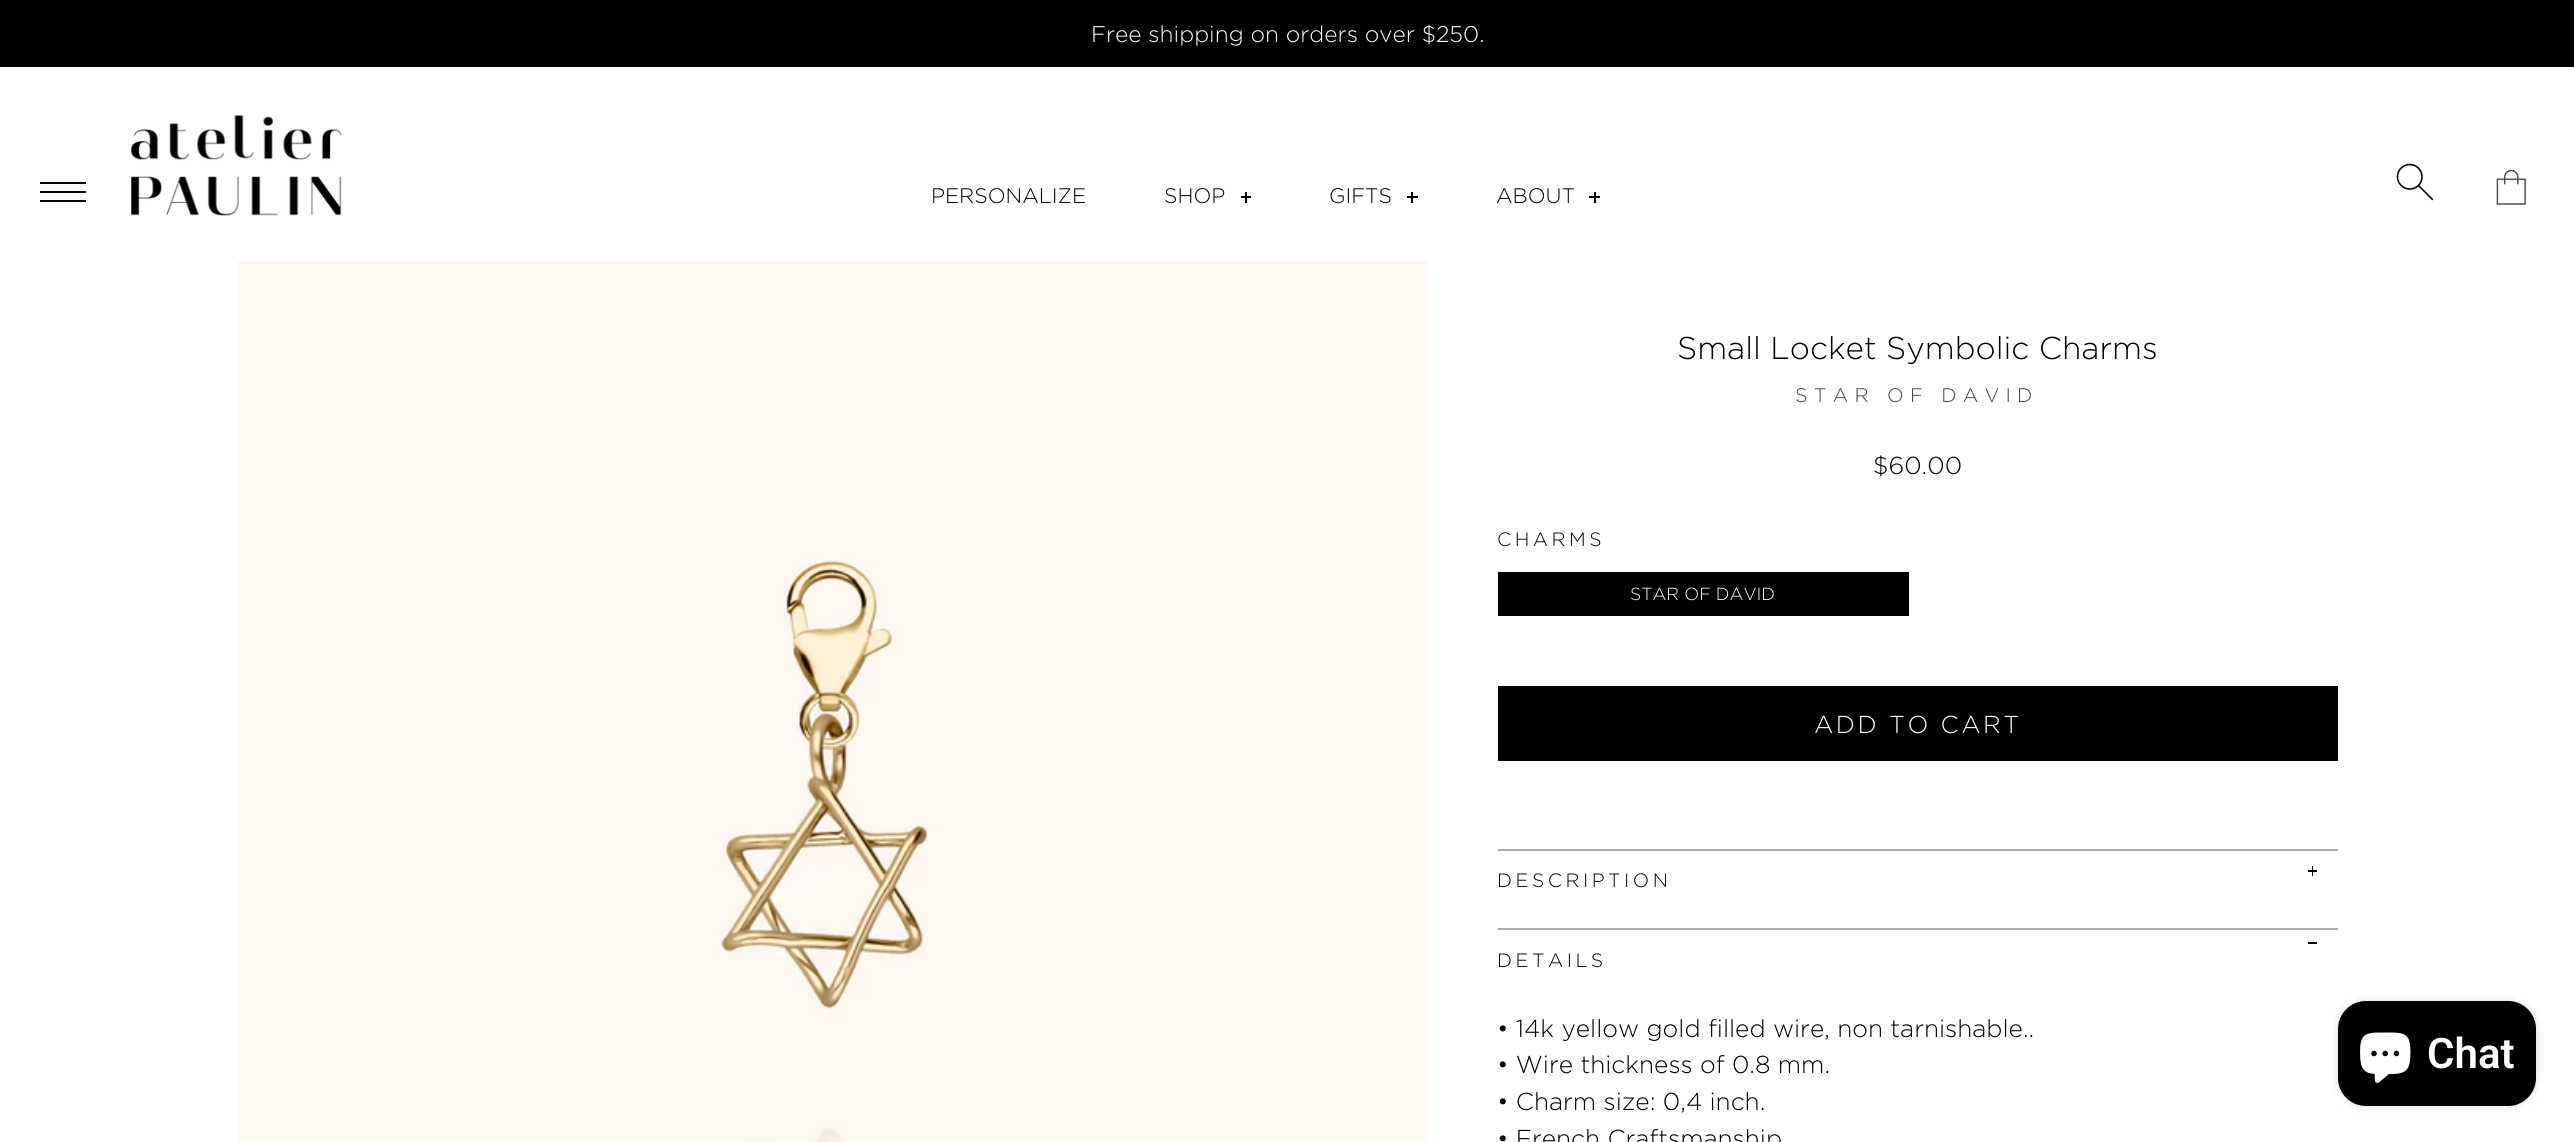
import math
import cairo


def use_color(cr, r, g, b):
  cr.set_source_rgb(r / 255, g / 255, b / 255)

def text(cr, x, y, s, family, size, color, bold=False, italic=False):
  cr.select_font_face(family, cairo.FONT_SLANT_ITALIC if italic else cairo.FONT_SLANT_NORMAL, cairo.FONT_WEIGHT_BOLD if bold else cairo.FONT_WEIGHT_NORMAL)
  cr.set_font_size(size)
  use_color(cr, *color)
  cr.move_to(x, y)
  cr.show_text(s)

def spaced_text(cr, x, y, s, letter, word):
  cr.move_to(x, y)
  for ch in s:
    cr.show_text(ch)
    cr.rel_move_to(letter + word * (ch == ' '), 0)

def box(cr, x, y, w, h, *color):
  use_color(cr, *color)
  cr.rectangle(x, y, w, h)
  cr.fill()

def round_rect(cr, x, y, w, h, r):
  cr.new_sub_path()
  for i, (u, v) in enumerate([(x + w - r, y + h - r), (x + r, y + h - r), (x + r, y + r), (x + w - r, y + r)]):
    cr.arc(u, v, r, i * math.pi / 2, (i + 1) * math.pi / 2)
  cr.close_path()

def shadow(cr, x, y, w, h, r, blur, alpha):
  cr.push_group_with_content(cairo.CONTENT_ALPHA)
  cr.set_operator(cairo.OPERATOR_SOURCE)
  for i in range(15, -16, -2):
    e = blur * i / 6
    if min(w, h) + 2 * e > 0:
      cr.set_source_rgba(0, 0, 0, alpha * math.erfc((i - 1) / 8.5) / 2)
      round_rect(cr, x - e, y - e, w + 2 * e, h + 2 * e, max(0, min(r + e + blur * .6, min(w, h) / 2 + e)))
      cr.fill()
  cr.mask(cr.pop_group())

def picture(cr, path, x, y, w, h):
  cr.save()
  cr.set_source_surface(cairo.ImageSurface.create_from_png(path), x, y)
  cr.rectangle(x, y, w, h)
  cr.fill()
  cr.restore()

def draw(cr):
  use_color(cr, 255, 255, 255)
  cr.paint()
  box(cr, 0, 0, 2574, 67, 0, 0, 0)
  box(cr, 40, 182, 46, 2, 0, 0, 0)
  box(cr, 40, 191, 46, 2, 0, 0, 0)
  box(cr, 40, 200, 46, 2, 0, 0, 0)
  picture(cr, "img_01.png", 131, 115, 211, 101)
  box(cr, 1241, 196, 10, 2, 0, 0, 0)
  box(cr, 1245, 192, 2, 11, 0, 0, 0)
  box(cr, 1407, 196, 11, 2, 0, 0, 0)
  box(cr, 1411, 192, 2, 11, 0, 0, 0)
  box(cr, 1589, 196, 11, 2, 0, 0, 0)
  box(cr, 1594, 192, 2, 11, 0, 0, 0)
  picture(cr, "img_02.png", 2396, 163, 38, 38)
  picture(cr, "img_03.png", 2496, 170, 30, 35)
  picture(cr, "img_04.png", 238, 261, 1190, 881)
  box(cr, 1498, 572, 411, 44, 0, 0, 0)
  box(cr, 1498, 686, 840, 75, 0, 0, 0)
  box(cr, 1498, 849, 840, 2, 170, 170, 170)
  box(cr, 2308, 870, 9, 2, 0, 0, 0)
  box(cr, 2312, 866, 1, 10, 0, 0, 0)
  box(cr, 1498, 928, 840, 2, 170, 170, 170)
  box(cr, 2308, 942, 9, 2, 0, 0, 0)
  use_color(cr, 0, 0, 0)
  shadow(cr, 2338, 1001, 198, 105, 28, 4.5, 0.15)
  use_color(cr, 0, 0, 0)
  round_rect(cr, 2338, 1001, 198, 105, 28)
  cr.fill()
  picture(cr, "img_05.png", 2360, 1032, 51, 51)
  text(cr, 1091, 42, "Free shipping on orders over $250.", "Gotham Light", 22.7, (255, 255, 255))
  text(cr, 931, 203, "PERSONALIZE", "Gotham Light", 21, (0, 0, 0))
  text(cr, 1164, 203, "SHOP", "Gotham Light", 21, (0, 0, 0))
  text(cr, 1329, 203, "GIFTS", "Gotham Light", 21, (0, 0, 0))
  text(cr, 1496, 203, "ABOUT", "Gotham Light", 21, (0, 0, 0))
  text(cr, 1677, 359, "Small Locket Symbolic Charms", "Gotham Light", 31.5, (0, 0, 0))
  cr.set_font_size(19.6)
  use_color(cr, 64, 64, 64)
  spaced_text(cr, 1795, 402, "STAR OF DAVID", 6.25, 0)
  text(cr, 1873, 474, "$60.00", "Gotham Light", 24.5, (0, 0, 0))
  cr.set_font_size(19.25)
  spaced_text(cr, 1497, 546, "CHARMS", 3.5, 0)
  text(cr, 1630, 600, "STAR OF DAVID", "Gotham Light", 17.5, (255, 255, 255))
  cr.set_font_size(24.5)
  spaced_text(cr, 1814, 733, "ADD TO CART", 2.5, 0)
  cr.set_font_size(19.25)
  use_color(cr, 0, 0, 0)
  spaced_text(cr, 1497, 887, "DESCRIPTION", 3.5, 0)
  spaced_text(cr, 1497, 967, "DETAILS", 3.5, 0)
  text(cr, 1497, 1037, "• 14k yellow gold filled wire, non tarnishable..", "Gotham Light", 24.5, (0, 0, 0))
  text(cr, 1497, 1073, "• Wire thickness of 0.8 mm.", "Gotham Light", 24.5, (0, 0, 0))
  text(cr, 1497, 1110, "• Charm size: 0,4 inch.", "Gotham Light", 24.5, (0, 0, 0))
  text(cr, 1497, 1147, "• French Craftsmanship", "Gotham Light", 24.5, (0, 0, 0))
  text(cr, 2427, 1068, "Chat", "Roboto SemiBold", 42, (255, 255, 255))


surface = cairo.ImageSurface(cairo.FORMAT_RGB24, 2574, 1142)
cr = cairo.Context(surface)
options = cairo.FontOptions()
options.set_hint_metrics(cairo.HINT_METRICS_OFF)
options.set_hint_style(cairo.HINT_STYLE_NONE)
cr.set_font_options(options)
cr.set_miter_limit(4)
draw(cr)
surface.write_to_png("out.png")
